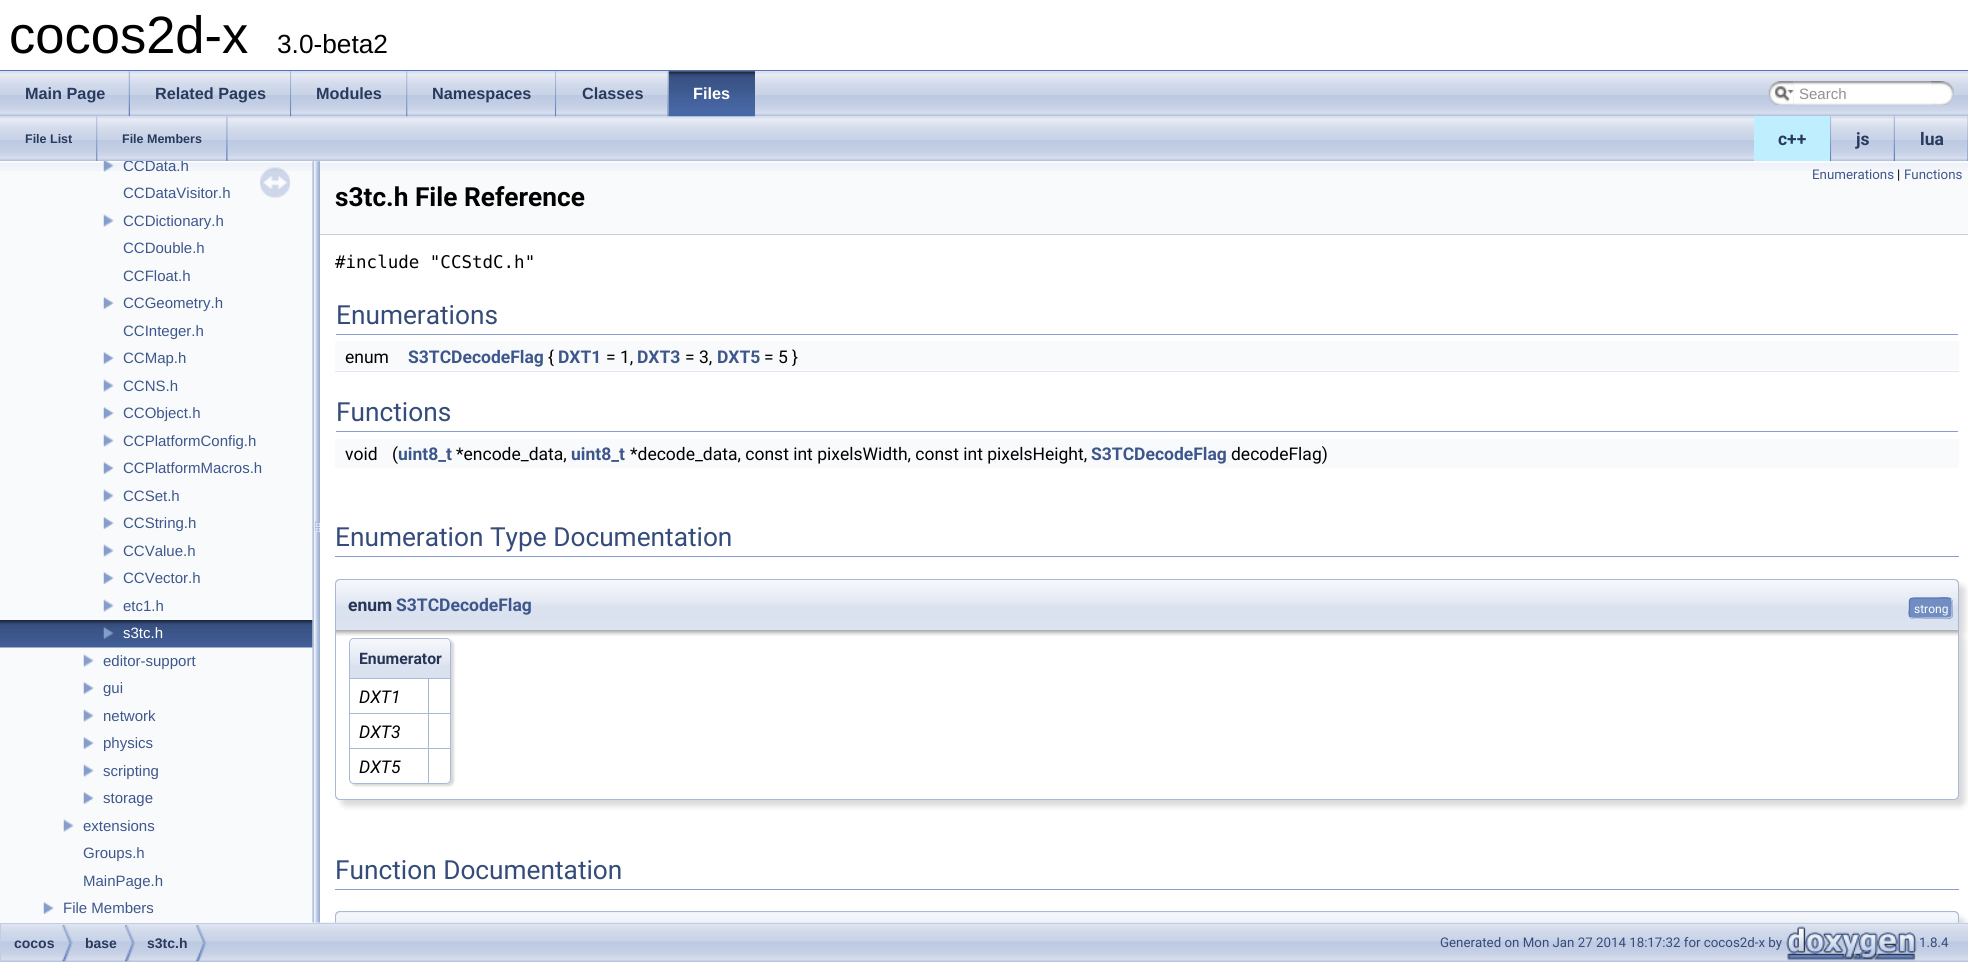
import math
import cairo


def use_color(cr, r, g, b):
  cr.set_source_rgb(r / 255, g / 255, b / 255)

def text(cr, x, y, s, family, size, color, bold=False, italic=False):
  cr.select_font_face(family, cairo.FONT_SLANT_ITALIC if italic else cairo.FONT_SLANT_NORMAL, cairo.FONT_WEIGHT_BOLD if bold else cairo.FONT_WEIGHT_NORMAL)
  cr.set_font_size(size)
  use_color(cr, *color)
  cr.move_to(x, y)
  cr.show_text(s)

def box(cr, x, y, w, h, *color):
  use_color(cr, *color)
  cr.rectangle(x, y, w, h)
  cr.fill()

def round_rect(cr, x, y, w, h, r):
  cr.new_sub_path()
  for i, (u, v) in enumerate([(x + w - r, y + h - r), (x + r, y + h - r), (x + r, y + r), (x + w - r, y + r)]):
    cr.arc(u, v, r, i * math.pi / 2, (i + 1) * math.pi / 2)
  cr.close_path()

def shadow(cr, x, y, w, h, r, blur, alpha):
  cr.push_group_with_content(cairo.CONTENT_ALPHA)
  cr.set_operator(cairo.OPERATOR_SOURCE)
  for i in range(15, -16, -2):
    e = blur * i / 6
    if min(w, h) + 2 * e > 0:
      cr.set_source_rgba(0, 0, 0, alpha * math.erfc((i - 1) / 8.5) / 2)
      round_rect(cr, x - e, y - e, w + 2 * e, h + 2 * e, max(0, min(r + e + blur * .6, min(w, h) / 2 + e)))
      cr.fill()
  cr.mask(cr.pop_group())

def picture(cr, path, x, y, w, h):
  cr.save()
  cr.set_source_surface(cairo.ImageSurface.create_from_png(path), x, y)
  cr.rectangle(x, y, w, h)
  cr.fill()
  cr.restore()

def draw(cr):
  use_color(cr, 255, 255, 255)
  cr.paint()
  box(cr, 0, 70, 1968, 1, 83, 115, 180)
  picture(cr, "img_01.png", 0, 71, 1968, 46)
  picture(cr, "img_17.png", 0, 116, 1968, 46)
  picture(cr, "img_02.png", 0, 71, 130, 46)
  picture(cr, "img_03.png", 128, 71, 2, 46)
  picture(cr, "img_04.png", 130, 71, 161, 46)
  picture(cr, "img_05.png", 290, 71, 2, 46)
  picture(cr, "img_06.png", 291, 71, 117, 46)
  picture(cr, "img_07.png", 406, 71, 2, 46)
  picture(cr, "img_08.png", 407, 71, 149, 46)
  picture(cr, "img_05.png", 555, 71, 2, 46)
  picture(cr, "img_09.png", 556, 71, 113, 46)
  picture(cr, "img_10.png", 667, 71, 2, 46)
  picture(cr, "img_11.png", 668, 71, 87, 46)
  picture(cr, "img_12.png", 668, 71, 87, 46)
  picture(cr, "img_13.png", 1768, 81, 26, 24)
  picture(cr, "img_14.png", 1774, 86, 20, 16)
  picture(cr, "img_15.png", 1793, 81, 147, 24)
  picture(cr, "img_16.png", 1931, 81, 23, 24)
  picture(cr, "img_18.png", 96, 116, 2, 45)
  picture(cr, "img_19.png", 97, 116, 131, 45)
  picture(cr, "img_20.png", 226, 116, 2, 45)
  box(cr, 1754, 116, 77, 45, 191, 239, 255)
  picture(cr, "img_21.png", 1830, 116, 2, 45)
  picture(cr, "img_22.png", 1831, 116, 64, 45)
  picture(cr, "img_23.png", 1893, 116, 2, 45)
  picture(cr, "img_24.png", 1895, 116, 73, 45)
  picture(cr, "img_25.png", 1967, 116, 1, 45)
  use_color(cr, 0, 0, 0)
  shadow(cr, 341, 918, 1624, 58, 5, 3, 0.15)
  use_color(cr, 226, 232, 242)
  cr.new_path()
  cr.move_to(340, 911)
  cr.line_to(1954, 911)
  cr.curve_to(1957, 911, 1959, 913, 1959, 916)
  cr.line_to(1959, 923)
  cr.line_to(335, 923)
  cr.line_to(335, 916)
  cr.curve_to(335, 913, 337, 911, 340, 911)
  cr.close_path()
  cr.fill()
  picture(cr, "img_39.png", 335, 912, 1624, 11)
  use_color(cr, 168, 184, 217)
  cr.set_fill_rule(cairo.FILL_RULE_EVEN_ODD)
  cr.new_path()
  cr.move_to(340, 911)
  cr.line_to(1954, 911)
  cr.curve_to(1957, 911, 1959, 913, 1959, 916)
  cr.line_to(1959, 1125)
  cr.line_to(335, 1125)
  cr.line_to(335, 916)
  cr.curve_to(335, 913, 337, 911, 340, 911)
  cr.close_path()
  cr.move_to(340, 912)
  cr.line_to(1954, 912)
  cr.curve_to(1956, 912, 1958, 914, 1958, 916)
  cr.line_to(1958, 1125)
  cr.line_to(336, 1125)
  cr.line_to(336, 916)
  cr.curve_to(336, 914, 338, 912, 340, 912)
  cr.close_path()
  cr.fill()
  picture(cr, "img_40.png", 1, 922, 1967, 40)
  box(cr, 0, 161, 313, 762, 249, 250, 252)
  picture(cr, "img_26.png", 0, 161, 313, 10)
  picture(cr, "img_27.png", 103, 161, 11, 11)
  picture(cr, "img_28.png", 103, 214, 11, 13)
  picture(cr, "img_29.png", 103, 297, 11, 12)
  picture(cr, "img_29.png", 103, 352, 11, 12)
  picture(cr, "img_28.png", 103, 379, 11, 13)
  picture(cr, "img_29.png", 103, 407, 11, 12)
  picture(cr, "img_28.png", 103, 434, 11, 13)
  picture(cr, "img_29.png", 103, 462, 11, 12)
  picture(cr, "img_30.png", 103, 489, 11, 13)
  picture(cr, "img_29.png", 103, 517, 11, 12)
  picture(cr, "img_28.png", 103, 544, 11, 13)
  picture(cr, "img_29.png", 103, 572, 11, 12)
  picture(cr, "img_28.png", 103, 599, 11, 13)
  picture(cr, "img_31.png", 0, 620, 313, 28)
  picture(cr, "img_32.png", 103, 627, 11, 12)
  picture(cr, "img_28.png", 83, 654, 11, 13)
  picture(cr, "img_29.png", 83, 682, 11, 12)
  picture(cr, "img_28.png", 83, 709, 11, 13)
  picture(cr, "img_29.png", 83, 737, 11, 12)
  picture(cr, "img_28.png", 83, 764, 11, 13)
  picture(cr, "img_29.png", 83, 792, 11, 12)
  picture(cr, "img_28.png", 63, 819, 11, 13)
  picture(cr, "img_29.png", 43, 902, 11, 12)
  picture(cr, "img_33.png", 260, 167, 30, 31)
  picture(cr, "img_34.png", 312, 161, 8, 762)
  box(cr, 320, 161, 1648, 73, 249, 250, 252)
  picture(cr, "img_35.png", 320, 163, 1648, 8)
  box(cr, 320, 234, 1648, 1, 196, 207, 229)
  box(cr, 336, 334, 1622, 1, 135, 158, 203)
  box(cr, 335, 341, 1624, 29, 249, 250, 252)
  box(cr, 335, 371, 1624, 1, 222, 228, 240)
  box(cr, 336, 431, 1622, 1, 135, 158, 203)
  box(cr, 335, 439, 1624, 29, 249, 250, 252)
  box(cr, 335, 556, 1624, 1, 135, 158, 203)
  use_color(cr, 0, 0, 0)
  shadow(cr, 341, 585, 1624, 51, 5, 3, 0.15)
  picture(cr, "img_36.png", 335, 580, 1624, 50)
  use_color(cr, 168, 184, 217)
  cr.new_path()
  cr.move_to(340, 579)
  cr.line_to(1954, 579)
  cr.curve_to(1957, 579, 1959, 581, 1959, 584)
  cr.line_to(1959, 630)
  cr.line_to(335, 630)
  cr.line_to(335, 584)
  cr.curve_to(335, 581, 337, 579, 340, 579)
  cr.close_path()
  cr.move_to(340, 580)
  cr.line_to(1954, 580)
  cr.curve_to(1956, 580, 1958, 582, 1958, 584)
  cr.line_to(1958, 630)
  cr.line_to(336, 630)
  cr.line_to(336, 584)
  cr.curve_to(336, 582, 338, 580, 340, 580)
  cr.close_path()
  cr.fill()
  use_color(cr, 114, 141, 193)
  round_rect(cr, 1909, 598, 44, 21, 4)
  cr.fill()
  cr.new_path()
  cr.move_to(1951, 599)
  cr.curve_to(1953, 601, 1952, 605.5, 1952, 608)
  cr.curve_to(1952, 618.5, 1953, 618, 1942.5, 618)
  cr.line_to(1924.5, 618)
  cr.curve_to(1922, 618, 1912.5, 619.5, 1910.5, 617)
  use_color(cr, 196, 207, 229)
  cr.set_line_width(1.2)
  cr.stroke()
  cr.new_path()
  cr.move_to(1910.5, 617)
  cr.curve_to(1908, 615, 1909.5, 610.5, 1909.5, 608)
  cr.curve_to(1909.5, 598, 1908, 598, 1918.5, 598)
  cr.line_to(1936.5, 598)
  cr.curve_to(1939, 598, 1949, 597, 1951, 599)
  use_color(cr, 83, 115, 180)
  cr.stroke()
  use_color(cr, 0, 0, 0)
  shadow(cr, 341, 636, 1624, 170, 5, 3, 0.15)
  use_color(cr, 255, 255, 255)
  cr.new_path()
  cr.move_to(335, 630)
  cr.line_to(1959, 630)
  cr.line_to(1959, 795)
  cr.curve_to(1959, 798, 1957, 800, 1954, 800)
  cr.line_to(340, 800)
  cr.curve_to(337, 800, 335, 798, 335, 795)
  cr.close_path()
  cr.fill()
  picture(cr, "img_37.png", 336, 630, 1622, 6)
  use_color(cr, 168, 184, 217)
  cr.new_path()
  cr.move_to(335, 630)
  cr.line_to(1959, 630)
  cr.line_to(1959, 795)
  cr.curve_to(1959, 798, 1957, 800, 1954, 800)
  cr.line_to(340, 800)
  cr.curve_to(337, 800, 335, 798, 335, 795)
  cr.close_path()
  cr.move_to(336, 630)
  cr.line_to(1958, 630)
  cr.line_to(1958, 795)
  cr.curve_to(1958, 797, 1956, 799, 1954, 799)
  cr.line_to(340, 799)
  cr.curve_to(338, 799, 336, 797, 336, 795)
  cr.close_path()
  cr.fill()
  cr.save()
  cr.new_path()
  cr.move_to(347, 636)
  cr.line_to(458, 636)
  cr.line_to(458, 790)
  cr.line_to(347, 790)
  cr.close_path()
  cr.move_to(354, 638)
  cr.line_to(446, 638)
  cr.curve_to(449, 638, 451, 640, 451, 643)
  cr.line_to(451, 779)
  cr.curve_to(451, 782, 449, 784, 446, 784)
  cr.line_to(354, 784)
  cr.curve_to(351, 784, 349, 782, 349, 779)
  cr.line_to(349, 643)
  cr.curve_to(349, 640, 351, 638, 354, 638)
  cr.close_path()
  cr.clip()
  use_color(cr, 0, 0, 0)
  shadow(cr, 351, 640, 103, 146, 5, 1, 0.15)
  cr.restore()
  round_rect(cr, 349.5, 638.5, 101, 145, 4.5)
  cr.set_line_width(1)
  cr.stroke()
  picture(cr, "img_38.png", 350, 638, 100, 40)
  box(cr, 350, 678, 100, 1, 168, 184, 217)
  box(cr, 428, 679, 1, 104, 168, 184, 217)
  box(cr, 350, 713, 100, 1, 168, 184, 217)
  box(cr, 350, 748, 100, 1, 168, 184, 217)
  box(cr, 335, 889, 1624, 1, 135, 158, 203)
  cr.rectangle(0.5, 923.5, 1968, 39)
  use_color(cr, 194, 205, 228)
  cr.stroke()
  picture(cr, "img_41.png", 62, 925, 11, 37)
  picture(cr, "img_42.png", 125, 925, 10, 37)
  picture(cr, "img_43.png", 196, 925, 11, 37)
  picture(cr, "img_44.png", 1786, 926, 131, 35)
  text(cr, 9, 53, "cocos2d-x", "Liberation Sans", 52.5, (0, 0, 0))
  text(cr, 277, 53, "3.0-beta2", "Liberation Sans", 26.25, (0, 0, 0))
  text(cr, 25, 99, "Main Page", "Liberation Sans", 16.25, (40, 58, 93), bold=True)
  text(cr, 155, 99, "Related Pages", "Liberation Sans", 16.25, (40, 58, 93), bold=True)
  text(cr, 316, 99, "Modules", "Liberation Sans", 16.25, (40, 58, 93), bold=True)
  text(cr, 432, 99, "Namespaces", "Liberation Sans", 16.25, (40, 58, 93), bold=True)
  text(cr, 582, 99, "Classes", "Liberation Sans", 16.25, (40, 58, 93), bold=True)
  text(cr, 693, 99, "Files", "Liberation Sans", 16.25, (255, 255, 255), bold=True)
  text(cr, 1799, 99, "Search", "Liberation Sans", 15, (144, 144, 144))
  text(cr, 25, 143, "File List", "Liberation Sans", 12.5, (40, 58, 93), bold=True)
  text(cr, 122, 143, "File Members", "Liberation Sans", 12.5, (40, 58, 93), bold=True)
  text(cr, 1778, 145, "c++", "Roboto", 17.5, (40, 58, 93), bold=True)
  text(cr, 1856, 145, "js", "Roboto", 17.5, (40, 58, 93), bold=True)
  text(cr, 1920, 145, "lua", "Roboto", 17.5, (40, 58, 93), bold=True)
  cr.save()
  cr.set_fill_rule(cairo.FILL_RULE_WINDING)
  cr.rectangle(0, 161, 313, 762)
  cr.clip()
  text(cr, 123, 171, "CCData.h", "Liberation Sans", 15, (61, 87, 140))
  cr.restore()
  text(cr, 123, 198, "CCDataVisitor.h", "Liberation Sans", 15, (61, 87, 140))
  text(cr, 123, 226, "CCDictionary.h", "Liberation Sans", 15, (61, 87, 140))
  text(cr, 123, 253, "CCDouble.h", "Liberation Sans", 15, (61, 87, 140))
  text(cr, 123, 281, "CCFloat.h", "Liberation Sans", 15, (61, 87, 140))
  text(cr, 123, 308, "CCGeometry.h", "Liberation Sans", 15, (61, 87, 140))
  text(cr, 123, 336, "CCInteger.h", "Liberation Sans", 15, (61, 87, 140))
  text(cr, 123, 363, "CCMap.h", "Liberation Sans", 15, (61, 87, 140))
  text(cr, 123, 391, "CCNS.h", "Liberation Sans", 15, (61, 87, 140))
  text(cr, 123, 418, "CCObject.h", "Liberation Sans", 15, (61, 87, 140))
  text(cr, 123, 446, "CCPlatformConfig.h", "Liberation Sans", 15, (61, 87, 140))
  text(cr, 123, 473, "CCPlatformMacros.h", "Liberation Sans", 15, (61, 87, 140))
  text(cr, 123, 501, "CCSet.h", "Liberation Sans", 15, (61, 87, 140))
  text(cr, 123, 528, "CCString.h", "Liberation Sans", 15, (61, 87, 140))
  text(cr, 123, 556, "CCValue.h", "Liberation Sans", 15, (61, 87, 140))
  text(cr, 123, 583, "CCVector.h", "Liberation Sans", 15, (61, 87, 140))
  text(cr, 123, 611, "etc1.h", "Liberation Sans", 15, (61, 87, 140))
  text(cr, 123, 638, "s3tc.h", "Liberation Sans", 15, (255, 255, 255))
  text(cr, 103, 666, "editor-support", "Liberation Sans", 15, (61, 87, 140))
  text(cr, 103, 693, "gui", "Liberation Sans", 15, (61, 87, 140))
  text(cr, 103, 721, "network", "Liberation Sans", 15, (61, 87, 140))
  text(cr, 103, 748, "physics", "Liberation Sans", 15, (61, 87, 140))
  text(cr, 103, 776, "scripting", "Liberation Sans", 15, (61, 87, 140))
  text(cr, 103, 803, "storage", "Liberation Sans", 15, (61, 87, 140))
  text(cr, 83, 831, "extensions", "Liberation Sans", 15, (61, 87, 140))
  text(cr, 83, 858, "Groups.h", "Liberation Sans", 15, (61, 87, 140))
  text(cr, 83, 886, "MainPage.h", "Liberation Sans", 15, (61, 87, 140))
  text(cr, 63, 913, "File Members", "Liberation Sans", 15, (61, 87, 140))
  text(cr, 1812, 179, "Enumerations", "Roboto", 13.3, (61, 87, 140))
  text(cr, 1897, 179, "|", "Roboto", 13.3, (0, 0, 0))
  text(cr, 1904, 179, "Functions", "Roboto", 13.3, (61, 87, 140))
  text(cr, 335, 206, "s3tc.h File Reference", "Roboto", 26.25, (0, 0, 0), bold=True)
  text(cr, 335, 268, "#include \"CCStdC.h\"", "DejaVu Sans Mono", 17.5, (0, 0, 0))
  text(cr, 336, 324, "Enumerations", "Roboto", 26.25, (53, 76, 123))
  text(cr, 345, 363, "enum", "Roboto", 17.5, (0, 0, 0))
  text(cr, 408, 363, "S3TCDecodeFlag", "Roboto", 17.5, (61, 87, 140), bold=True)
  text(cr, 548, 363, "{", "Roboto", 17.5, (0, 0, 0))
  text(cr, 558, 363, "DXT1", "Roboto", 17.5, (61, 87, 140), bold=True)
  text(cr, 606, 363, "= 1,", "Roboto", 17.5, (0, 0, 0))
  text(cr, 637, 363, "DXT3", "Roboto", 17.5, (61, 87, 140), bold=True)
  text(cr, 685, 363, "= 3,", "Roboto", 17.5, (0, 0, 0))
  text(cr, 717, 363, "DXT5", "Roboto", 17.5, (61, 87, 140), bold=True)
  text(cr, 764, 363, "= 5 }", "Roboto", 17.5, (0, 0, 0))
  text(cr, 336, 421, "Functions", "Roboto", 26.25, (53, 76, 123))
  text(cr, 345, 460, "void", "Roboto", 17.5, (0, 0, 0))
  text(cr, 392, 460, "(", "Roboto", 17.5, (0, 0, 0))
  text(cr, 398, 460, "uint8_t", "Roboto", 17.5, (61, 87, 140), bold=True)
  text(cr, 456, 460, "*encode_data,", "Roboto", 17.5, (0, 0, 0))
  text(cr, 571, 460, "uint8_t", "Roboto", 17.5, (61, 87, 140), bold=True)
  text(cr, 630, 460, "*decode_data, const int pixelsWidth, const int pixelsHeight,", "Roboto", 17.5, (0, 0, 0))
  text(cr, 1091, 460, "S3TCDecodeFlag", "Roboto", 17.5, (61, 87, 140), bold=True)
  text(cr, 1231, 460, "decodeFlag)", "Roboto", 17.5, (0, 0, 0))
  text(cr, 335, 546, "Enumeration Type Documentation", "Roboto", 26.25, (53, 76, 123))
  text(cr, 348, 611, "enum", "Roboto", 17.5, (37, 53, 85), bold=True)
  text(cr, 396, 611, "S3TCDecodeFlag", "Roboto", 17.5, (61, 87, 140), bold=True)
  text(cr, 1914, 613, "strong", "Roboto", 12, (255, 255, 255))
  text(cr, 359, 664, "Enumerator", "Roboto", 15.75, (37, 53, 85), bold=True)
  text(cr, 359, 703, "DXT1", "Roboto", 17.5, (0, 0, 0), italic=True)
  text(cr, 359, 738, "DXT3", "Roboto", 17.5, (0, 0, 0), italic=True)
  text(cr, 359, 773, "DXT5", "Roboto", 17.5, (0, 0, 0), italic=True)
  text(cr, 335, 879, "Function Documentation", "Roboto", 26.25, (53, 76, 123))
  text(cr, 14, 948, "cocos", "Liberation Sans", 14, (40, 58, 93), bold=True)
  text(cr, 85, 948, "base", "Liberation Sans", 14, (40, 58, 93), bold=True)
  text(cr, 147, 948, "s3tc.h", "Liberation Sans", 14, (40, 58, 93), bold=True)
  text(cr, 1440, 947, "Generated on Mon Jan 27 2014 18:17:32 for cocos2d-x by", "Roboto", 13.3, (53, 76, 123))
  text(cr, 1919, 947, "1.8.4", "Roboto", 13.3, (53, 76, 123))


surface = cairo.ImageSurface(cairo.FORMAT_RGB24, 1968, 962)
cr = cairo.Context(surface)
options = cairo.FontOptions()
options.set_hint_metrics(cairo.HINT_METRICS_OFF)
options.set_hint_style(cairo.HINT_STYLE_NONE)
cr.set_font_options(options)
cr.set_miter_limit(4)
draw(cr)
surface.write_to_png("out.png")
